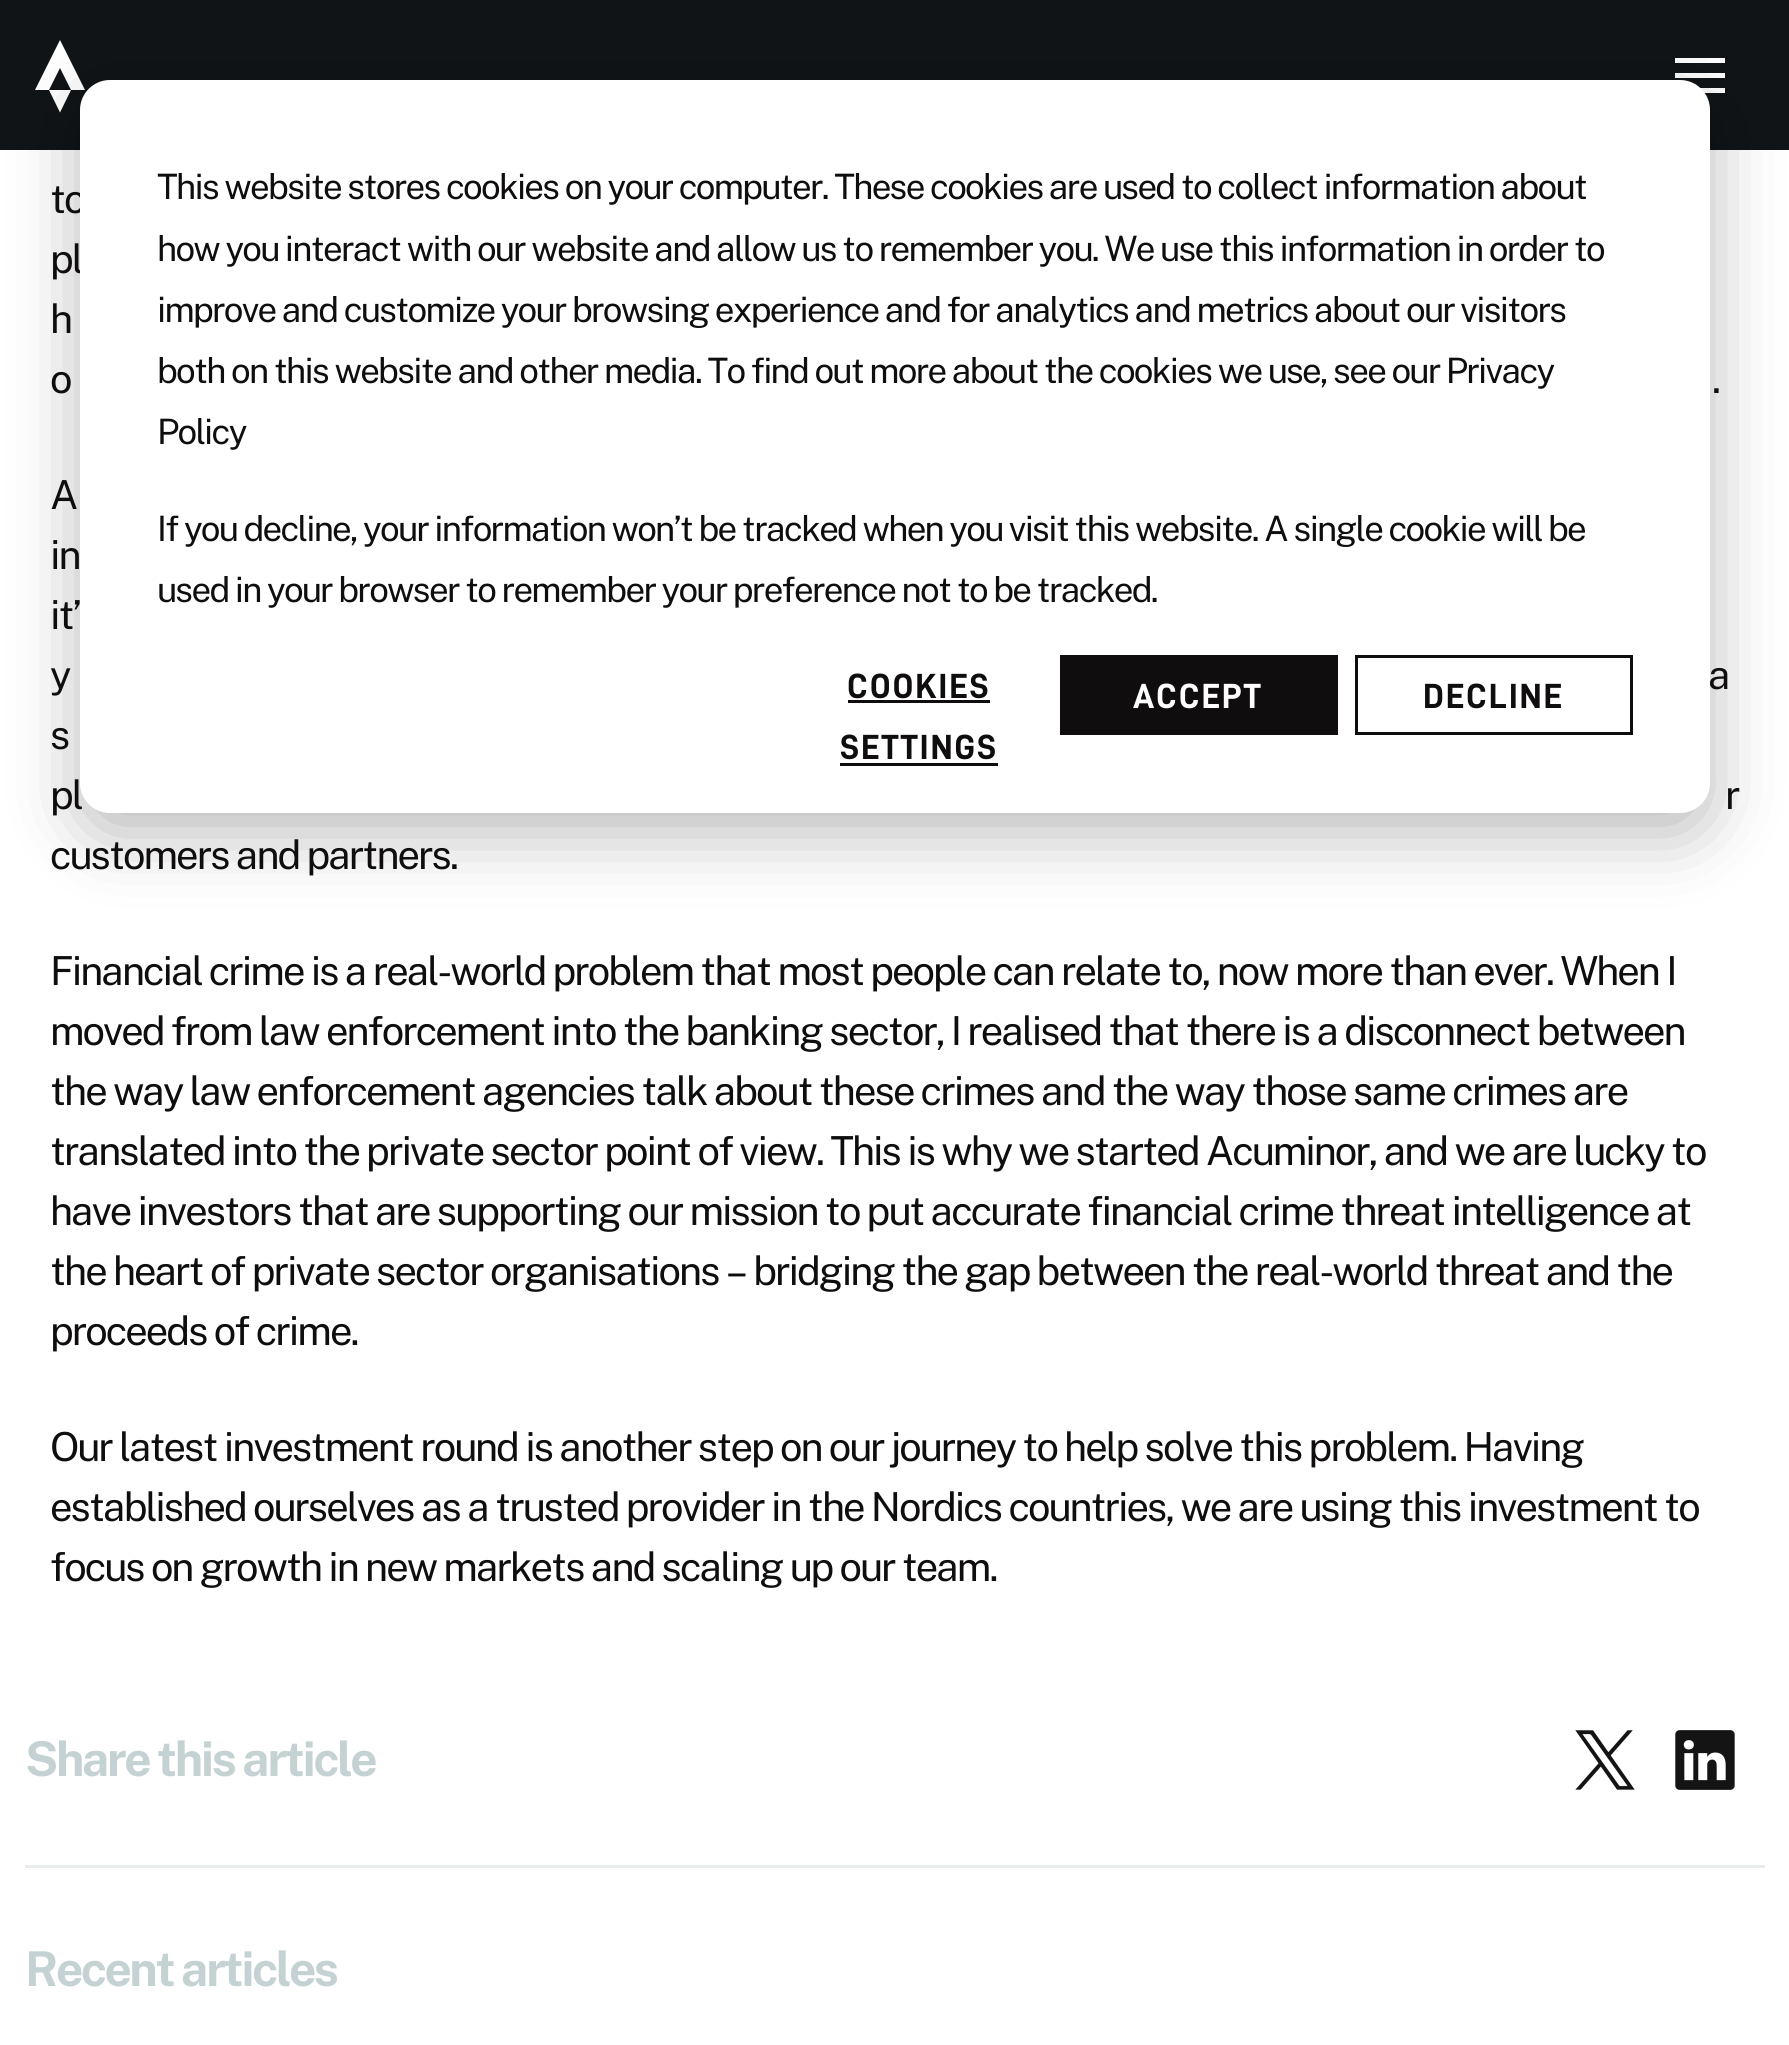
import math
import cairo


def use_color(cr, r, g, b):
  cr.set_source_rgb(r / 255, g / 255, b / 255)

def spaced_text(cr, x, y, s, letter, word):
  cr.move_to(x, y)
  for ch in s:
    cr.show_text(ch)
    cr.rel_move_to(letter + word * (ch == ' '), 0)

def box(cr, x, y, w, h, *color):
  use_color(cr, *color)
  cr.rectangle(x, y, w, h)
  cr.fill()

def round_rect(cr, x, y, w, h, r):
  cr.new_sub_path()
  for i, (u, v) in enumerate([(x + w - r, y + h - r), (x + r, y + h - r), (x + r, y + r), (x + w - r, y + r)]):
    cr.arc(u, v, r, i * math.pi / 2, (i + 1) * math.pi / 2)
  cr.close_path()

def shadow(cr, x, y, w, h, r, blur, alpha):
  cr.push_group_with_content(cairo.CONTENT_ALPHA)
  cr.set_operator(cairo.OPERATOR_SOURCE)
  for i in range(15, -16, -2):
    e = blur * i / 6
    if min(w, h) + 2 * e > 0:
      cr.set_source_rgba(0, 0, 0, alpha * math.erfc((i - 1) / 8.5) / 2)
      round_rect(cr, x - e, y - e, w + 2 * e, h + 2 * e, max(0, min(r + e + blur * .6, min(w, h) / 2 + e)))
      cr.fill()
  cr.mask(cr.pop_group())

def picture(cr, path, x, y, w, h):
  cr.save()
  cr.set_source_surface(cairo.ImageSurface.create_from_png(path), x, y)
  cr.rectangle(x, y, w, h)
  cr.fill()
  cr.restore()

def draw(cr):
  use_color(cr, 255, 255, 255)
  cr.paint()
  box(cr, 0, 0, 1789, 150, 16, 20, 23)
  use_color(cr, 255, 255, 255)
  cr.new_path()
  cr.move_to(60, 40)
  cr.line_to(35, 90)
  cr.line_to(49, 90)
  cr.line_to(60, 68)
  cr.line_to(71, 90)
  cr.line_to(85, 90)
  cr.close_path()
  cr.fill()
  cr.new_path()
  cr.move_to(60, 112.5)
  cr.line_to(71, 90)
  cr.line_to(49, 90)
  cr.close_path()
  cr.fill()
  box(cr, 1700, 88, 25, 5, 255, 255, 255)
  box(cr, 1675, 58, 50, 5, 255, 255, 255)
  box(cr, 1675, 73, 50, 5, 255, 255, 255)
  use_color(cr, 0, 0, 0)
  shadow(cr, 80, 100, 1630, 733, 30, 35, 0.28)
  box(cr, 25, 1865, 1740, 3, 232, 236, 237)
  picture(cr, "img_01.png", 1575, 1730, 60, 60)
  picture(cr, "img_02.png", 1675, 1730, 60, 60)
  cr.select_font_face("Public Sans")
  cr.set_font_size(40)
  use_color(cr, 15, 13, 13)
  spaced_text(cr, 50, 213, "to", -2, 0)
  spaced_text(cr, 50, 273, "pl", -2, 0)
  spaced_text(cr, 50, 333, "h", -2, 0)
  spaced_text(cr, 50, 393, "o", -2, 0)
  spaced_text(cr, 1712, 393, ".", -2, 0)
  spaced_text(cr, 50, 509, "A", -2, 0)
  spaced_text(cr, 50, 569, "in", -2, 0)
  spaced_text(cr, 50, 629, "it’", -2, 0)
  spaced_text(cr, 50, 689, "y", -2, 0)
  spaced_text(cr, 1708, 689, "a", -2, 0)
  spaced_text(cr, 50, 749, "s", -2, 0)
  spaced_text(cr, 50, 809, "pl", -2, 0)
  use_color(cr, 255, 255, 255)
  round_rect(cr, 80, 80, 1630, 733, 30)
  cr.fill()
  cr.rectangle(1356.5, 656.5, 275, 77)
  use_color(cr, 15, 13, 13)
  cr.set_line_width(3)
  cr.stroke()
  cr.select_font_face("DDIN", cairo.FONT_SLANT_NORMAL, cairo.FONT_WEIGHT_BOLD)
  cr.set_font_size(35)
  spaced_text(cr, 1423, 708, "DECLINE", 1.75, 0)
  box(cr, 1060, 655, 278, 80, 15, 13, 13)
  use_color(cr, 255, 255, 255)
  spaced_text(cr, 1133, 708, "ACCEPT", 1.75, 0)
  use_color(cr, 15, 13, 13)
  spaced_text(cr, 840, 759, "SETTINGS", 1.75, 0)
  box(cr, 840, 763, 158, 3, 15, 13, 13)
  spaced_text(cr, 847, 698, "COOKIES", 1.75, 0)
  box(cr, 848, 700, 142, 3, 15, 13, 13)
  cr.select_font_face("Public Sans")
  spaced_text(cr, 157, 602, "used in your browser to remember your preference not to be tracked.", -1.75, 0)
  spaced_text(cr, 157, 541, "If you decline, your information won’t be tracked when you visit this website. A single cookie will be", -1.75, 0)
  spaced_text(cr, 157, 444, "Policy", -1.75, 0)
  spaced_text(cr, 157, 383, "both on this website and other media. To find out more about the cookies we use, see our Privacy", -1.75, 0)
  spaced_text(cr, 157, 322, "improve and customize your browsing experience and for analytics and metrics about our visitors", -1.75, 0)
  spaced_text(cr, 157, 261, "how you interact with our website and allow us to remember you. We use this information in order to", -1.75, 0)
  spaced_text(cr, 157, 199, "This website stores cookies on your computer. These cookies are used to collect information about", -1.75, 0)
  cr.set_font_size(40)
  spaced_text(cr, 1725, 809, "r", -2, 0)
  spaced_text(cr, 50, 869, "customers and partners.", -2, 0)
  spaced_text(cr, 50, 985, "Financial crime is a real-world problem that most people can relate to, now more than ever. When I", -2, 0)
  spaced_text(cr, 50, 1045, "moved from law enforcement into the banking sector, I realised that there is a disconnect between", -2, 0)
  spaced_text(cr, 50, 1105, "the way law enforcement agencies talk about these crimes and the way those same crimes are", -2, 0)
  spaced_text(cr, 50, 1165, "translated into the private sector point of view. This is why we started Acuminor, and we are lucky to", -2, 0)
  spaced_text(cr, 50, 1225, "have investors that are supporting our mission to put accurate financial crime threat intelligence at", -2, 0)
  spaced_text(cr, 50, 1285, "the heart of private sector organisations – bridging the gap between the real-world threat and the", -2, 0)
  spaced_text(cr, 50, 1345, "proceeds of crime.", -2, 0)
  spaced_text(cr, 50, 1461, "Our latest investment round is another step on our journey to help solve this problem. Having", -2, 0)
  spaced_text(cr, 50, 1521, "established ourselves as a trusted provider in the Nordics countries, we are using this investment to", -2, 0)
  spaced_text(cr, 50, 1581, "focus on growth in new markets and scaling up our team.", -2, 0)
  cr.select_font_face("Public Sans", cairo.FONT_SLANT_NORMAL, cairo.FONT_WEIGHT_BOLD)
  cr.set_font_size(48)
  use_color(cr, 197, 210, 212)
  spaced_text(cr, 25, 1776, "Share this article", -2.4, 0)
  spaced_text(cr, 25, 1986, "Recent articles", -2.4, 0)


surface = cairo.ImageSurface(cairo.FORMAT_RGB24, 1789, 2045)
cr = cairo.Context(surface)
options = cairo.FontOptions()
options.set_hint_metrics(cairo.HINT_METRICS_OFF)
options.set_hint_style(cairo.HINT_STYLE_NONE)
cr.set_font_options(options)
cr.set_miter_limit(4)
draw(cr)
surface.write_to_png("out.png")
